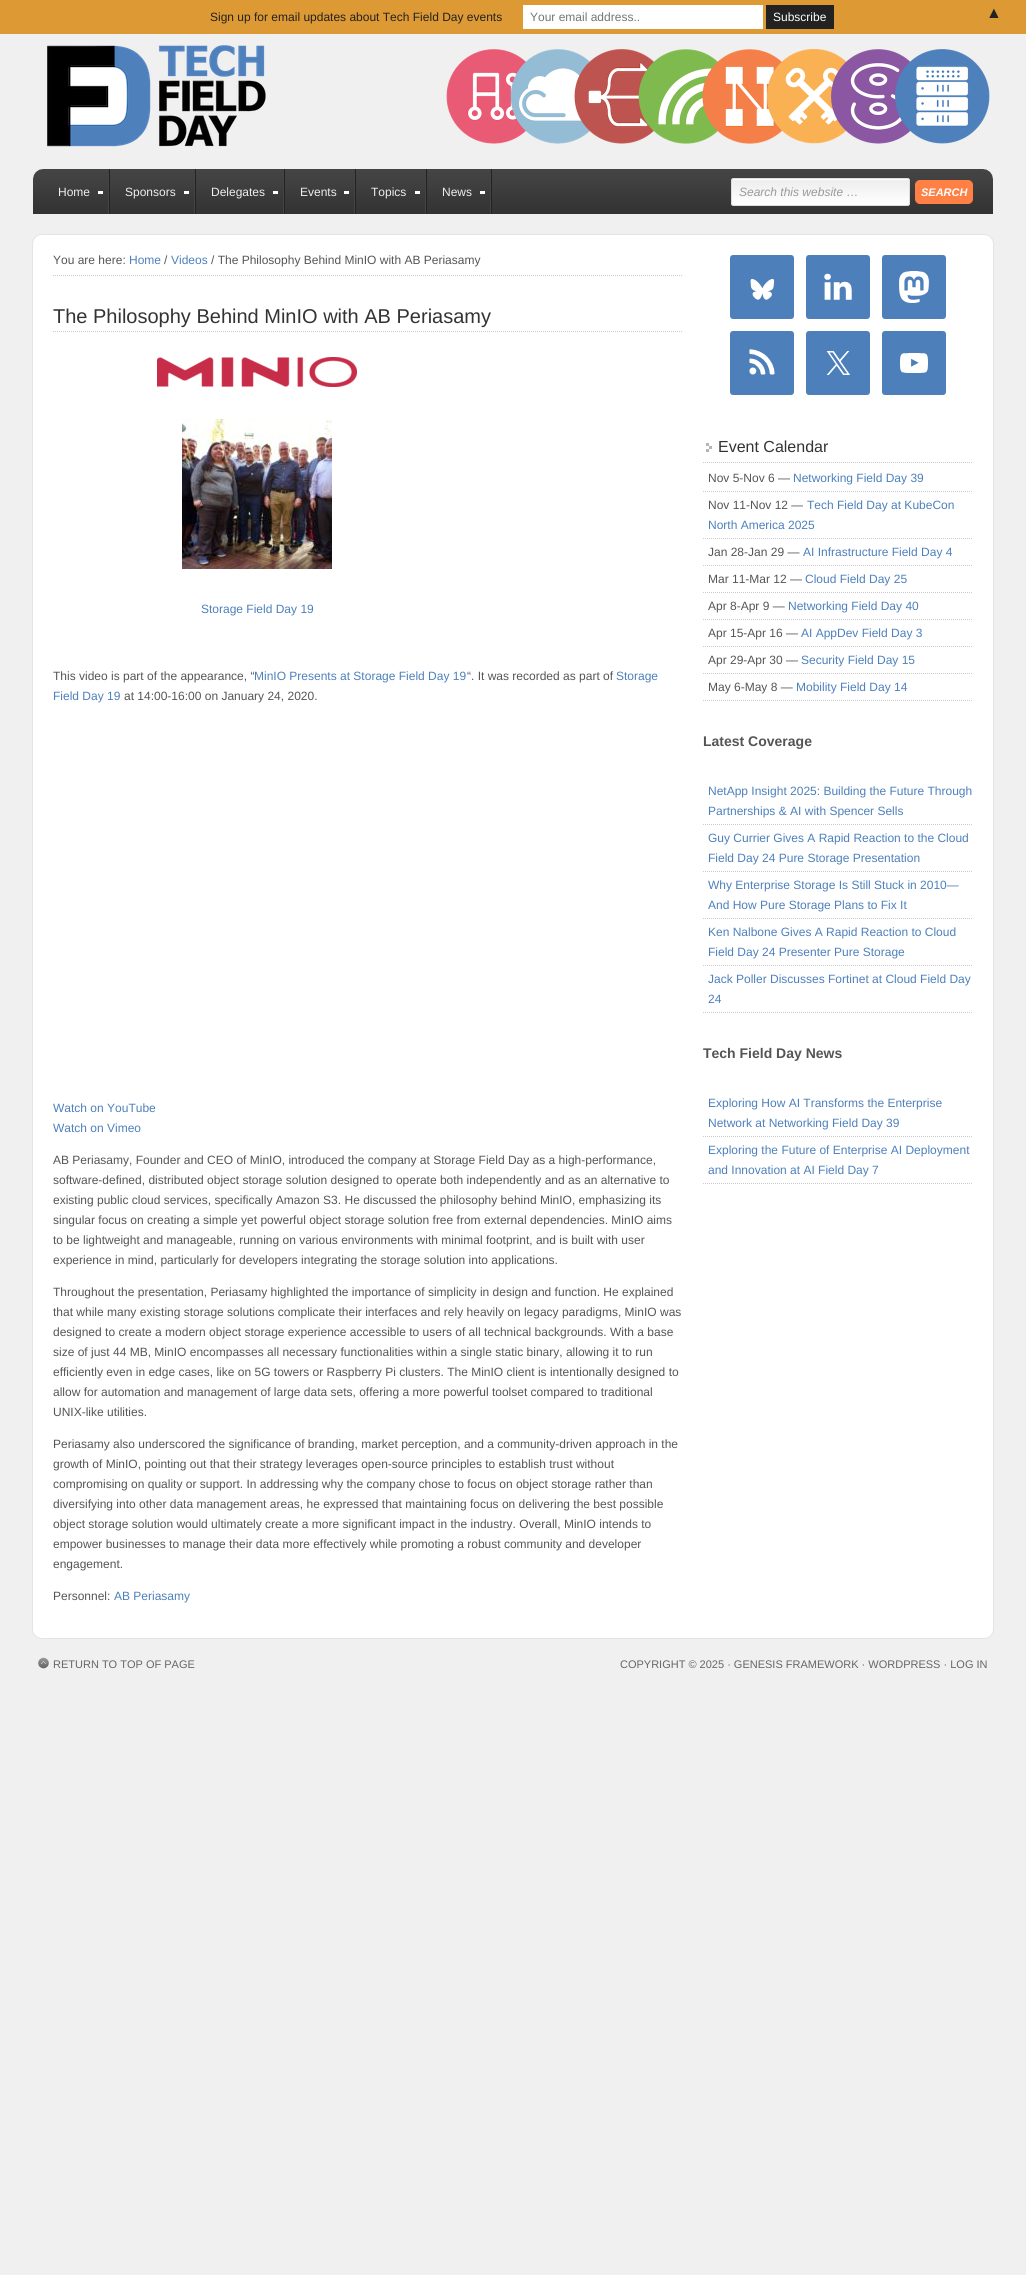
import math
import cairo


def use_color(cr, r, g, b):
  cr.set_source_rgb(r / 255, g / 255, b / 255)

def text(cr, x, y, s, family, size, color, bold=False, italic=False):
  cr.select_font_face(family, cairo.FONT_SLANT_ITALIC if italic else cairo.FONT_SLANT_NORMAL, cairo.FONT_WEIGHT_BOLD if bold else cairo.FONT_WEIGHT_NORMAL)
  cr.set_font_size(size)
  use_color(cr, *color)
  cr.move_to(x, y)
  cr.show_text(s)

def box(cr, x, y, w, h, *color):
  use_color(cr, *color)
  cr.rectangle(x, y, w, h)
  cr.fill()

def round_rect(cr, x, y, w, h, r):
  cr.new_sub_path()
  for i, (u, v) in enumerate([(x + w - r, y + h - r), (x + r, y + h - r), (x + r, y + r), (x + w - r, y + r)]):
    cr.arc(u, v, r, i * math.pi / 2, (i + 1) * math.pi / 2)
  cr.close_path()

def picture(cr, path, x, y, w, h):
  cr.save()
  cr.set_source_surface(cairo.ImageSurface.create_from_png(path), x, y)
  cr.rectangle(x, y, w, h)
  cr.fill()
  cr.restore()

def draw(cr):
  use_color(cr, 240, 240, 240)
  cr.paint()
  box(cr, 0, 0, 1026, 34, 221, 153, 51)
  box(cr, 523, 5, 240, 24, 255, 255, 255)
  box(cr, 766, 5, 68, 24, 34, 34, 34)
  picture(cr, "img_01.png", 47, 45, 219, 102)
  picture(cr, "img_02.png", 446, 49, 77, 95)
  picture(cr, "img_03.png", 523, 49, 65, 95)
  picture(cr, "img_04.png", 588, 49, 65, 95)
  picture(cr, "img_05.png", 653, 49, 65, 95)
  picture(cr, "img_06.png", 718, 49, 65, 95)
  picture(cr, "img_07.png", 783, 49, 65, 95)
  picture(cr, "img_08.png", 848, 49, 65, 95)
  picture(cr, "img_09.png", 913, 49, 77, 95)
  picture(cr, "img_10.png", 33, 169, 960, 45)
  picture(cr, "img_11.png", 108, 169, 2, 45)
  box(cr, 98, 191, 5, 3, 255, 255, 255)
  picture(cr, "img_11.png", 194, 169, 2, 45)
  box(cr, 184, 191, 5, 3, 255, 255, 255)
  picture(cr, "img_11.png", 283, 169, 2, 45)
  box(cr, 273, 191, 5, 3, 255, 255, 255)
  picture(cr, "img_11.png", 354, 169, 2, 45)
  box(cr, 344, 191, 5, 3, 255, 255, 255)
  picture(cr, "img_11.png", 425, 169, 2, 45)
  box(cr, 415, 191, 5, 3, 255, 255, 255)
  picture(cr, "img_11.png", 490, 169, 2, 45)
  box(cr, 480, 191, 5, 3, 255, 255, 255)
  picture(cr, "img_12.png", 731, 178, 179, 28)
  round_rect(cr, 731.5, 178.5, 178, 27, 2.5)
  use_color(cr, 221, 221, 221)
  cr.set_line_width(1)
  cr.stroke()
  use_color(cr, 255, 128, 69)
  round_rect(cr, 915.5, 180.5, 57, 23, 4.5)
  cr.fill_preserve()
  cr.stroke()
  use_color(cr, 255, 255, 255)
  round_rect(cr, 32.5, 234.5, 961, 1404, 9.5)
  cr.fill_preserve()
  use_color(cr, 228, 228, 228)
  cr.stroke()
  cr.new_path()
  cr.move_to(53, 275.5)
  cr.line_to(683, 275.5)
  use_color(cr, 204, 204, 204)
  cr.set_dash([1, 1])
  cr.stroke()
  cr.new_path()
  cr.move_to(53, 331.5)
  cr.line_to(683, 331.5)
  cr.stroke()
  picture(cr, "img_13.png", 157, 357, 200, 30)
  picture(cr, "img_14.png", 182, 419, 150, 150)
  use_color(cr, 77, 128, 187)
  round_rect(cr, 730, 255, 64, 64, 3)
  cr.fill()
  picture(cr, "img_15.png", 750, 279, 25, 21)
  round_rect(cr, 806, 255, 64, 64, 3)
  cr.fill()
  picture(cr, "img_16.png", 824, 273, 28, 27)
  round_rect(cr, 882, 255, 64, 64, 3)
  cr.fill()
  picture(cr, "img_17.png", 899, 271, 30, 32)
  round_rect(cr, 730, 331, 64, 64, 3)
  cr.fill()
  picture(cr, "img_18.png", 749, 349, 26, 26)
  round_rect(cr, 806, 331, 64, 64, 3)
  cr.fill()
  picture(cr, "img_19.png", 826, 351, 24, 24)
  round_rect(cr, 882, 331, 64, 64, 3)
  cr.fill()
  picture(cr, "img_20.png", 900, 353, 28, 20)
  picture(cr, "img_21.png", 706, 443, 6, 9)
  cr.new_path()
  cr.move_to(703, 462.5)
  cr.line_to(973, 462.5)
  use_color(cr, 204, 204, 204)
  cr.stroke()
  cr.new_path()
  cr.move_to(703, 491.5)
  cr.line_to(973, 491.5)
  cr.stroke()
  cr.new_path()
  cr.move_to(703, 538.5)
  cr.line_to(973, 538.5)
  cr.stroke()
  cr.new_path()
  cr.move_to(703, 565.5)
  cr.line_to(973, 565.5)
  cr.stroke()
  cr.new_path()
  cr.move_to(703, 592.5)
  cr.line_to(973, 592.5)
  cr.stroke()
  cr.new_path()
  cr.move_to(703, 619.5)
  cr.line_to(973, 619.5)
  cr.stroke()
  cr.new_path()
  cr.move_to(703, 646.5)
  cr.line_to(973, 646.5)
  cr.stroke()
  cr.new_path()
  cr.move_to(703, 673.5)
  cr.line_to(973, 673.5)
  cr.stroke()
  cr.new_path()
  cr.move_to(703, 700.5)
  cr.line_to(973, 700.5)
  cr.stroke()
  cr.new_path()
  cr.move_to(703, 824.5)
  cr.line_to(973, 824.5)
  cr.stroke()
  cr.new_path()
  cr.move_to(703, 871.5)
  cr.line_to(973, 871.5)
  cr.stroke()
  cr.new_path()
  cr.move_to(703, 918.5)
  cr.line_to(973, 918.5)
  cr.stroke()
  cr.new_path()
  cr.move_to(703, 965.5)
  cr.line_to(973, 965.5)
  cr.stroke()
  cr.new_path()
  cr.move_to(703, 1012.5)
  cr.line_to(973, 1012.5)
  cr.stroke()
  cr.new_path()
  cr.move_to(703, 1136.5)
  cr.line_to(973, 1136.5)
  cr.stroke()
  cr.new_path()
  cr.move_to(703, 1183.5)
  cr.line_to(973, 1183.5)
  cr.stroke()
  picture(cr, "img_22.png", 38, 1657, 11, 12)
  text(cr, 210, 21, "Sign up for email updates about Tech Field Day events", "Liberation Sans", 12, (34, 34, 34))
  text(cr, 530, 21, "Your email address..", "Liberation Sans", 12, (117, 117, 117))
  text(cr, 773, 21, "Subscribe", "Liberation Sans", 12, (255, 255, 255))
  text(cr, 986, 18, "▲", "Liberation Sans", 16, (34, 34, 34))
  text(cr, 58, 196, "Home", "Liberation Sans", 12, (238, 238, 238))
  text(cr, 125, 196, "Sponsors", "Liberation Sans", 12, (238, 238, 238))
  text(cr, 211, 196, "Delegates", "Liberation Sans", 12, (238, 238, 238))
  text(cr, 300, 196, "Events", "Liberation Sans", 12, (238, 238, 238))
  text(cr, 371, 196, "Topics", "Liberation Sans", 12, (238, 238, 238))
  text(cr, 442, 196, "News", "Liberation Sans", 12, (238, 238, 238))
  text(cr, 739, 196, "Search this website …", "Liberation Sans", 12, (153, 153, 153), italic=True)
  text(cr, 921, 196, "SEARCH", "Liberation Sans", 11, (255, 255, 255), bold=True, italic=True)
  text(cr, 53, 264, "You are here:", "Liberation Sans", 12, (85, 85, 85))
  text(cr, 129, 264, "Home", "Liberation Sans", 12, (77, 128, 187))
  text(cr, 164, 264, "/", "Liberation Sans", 12, (85, 85, 85))
  text(cr, 171, 264, "Videos", "Liberation Sans", 12, (77, 128, 187))
  text(cr, 211, 264, "/ The Philosophy Behind MinIO with AB Periasamy", "Liberation Sans", 12, (85, 85, 85))
  text(cr, 53, 323, "The Philosophy Behind MinIO with AB Periasamy", "Liberation Sans", 20, (51, 51, 51))
  text(cr, 201, 613, "Storage Field Day 19", "Liberation Sans", 12, (77, 128, 187))
  text(cr, 53, 680, "This video is part of the appearance, “", "Liberation Sans", 12, (85, 85, 85))
  text(cr, 254, 680, "MinIO Presents at Storage Field Day 19", "Liberation Sans", 12, (77, 128, 187))
  text(cr, 467, 680, "“. It was recorded as part of", "Liberation Sans", 12, (85, 85, 85))
  text(cr, 616, 680, "Storage", "Liberation Sans", 12, (77, 128, 187))
  text(cr, 53, 700, "Field Day 19", "Liberation Sans", 12, (77, 128, 187))
  text(cr, 124, 700, "at 14:00-16:00 on January 24, 2020.", "Liberation Sans", 12, (85, 85, 85))
  text(cr, 53, 1112, "Watch on YouTube", "Liberation Sans", 12, (77, 128, 187))
  text(cr, 53, 1132, "Watch on Vimeo", "Liberation Sans", 12, (77, 128, 187))
  text(cr, 53, 1164, "AB Periasamy, Founder and CEO of MinIO, introduced the company at Storage Field Day as a high-performance,", "Liberation Sans", 12, (85, 85, 85))
  text(cr, 53, 1184, "software-defined, distributed object storage solution designed to operate both independently and as an alternative to", "Liberation Sans", 12, (85, 85, 85))
  text(cr, 53, 1204, "existing public cloud services, specifically Amazon S3. He discussed the philosophy behind MinIO, emphasizing its", "Liberation Sans", 12, (85, 85, 85))
  text(cr, 53, 1224, "singular focus on creating a simple yet powerful object storage solution free from external dependencies. MinIO aims", "Liberation Sans", 12, (85, 85, 85))
  text(cr, 53, 1244, "to be lightweight and manageable, running on various environments with minimal footprint, and is built with user", "Liberation Sans", 12, (85, 85, 85))
  text(cr, 53, 1264, "experience in mind, particularly for developers integrating the storage solution into applications.", "Liberation Sans", 12, (85, 85, 85))
  text(cr, 53, 1296, "Throughout the presentation, Periasamy highlighted the importance of simplicity in design and function. He explained", "Liberation Sans", 12, (85, 85, 85))
  text(cr, 53, 1316, "that while many existing storage solutions complicate their interfaces and rely heavily on legacy paradigms, MinIO was", "Liberation Sans", 12, (85, 85, 85))
  text(cr, 53, 1336, "designed to create a modern object storage experience accessible to users of all technical backgrounds. With a base", "Liberation Sans", 12, (85, 85, 85))
  text(cr, 53, 1356, "size of just 44 MB, MinIO encompasses all necessary functionalities within a single static binary, allowing it to run", "Liberation Sans", 12, (85, 85, 85))
  text(cr, 53, 1376, "efficiently even in edge cases, like on 5G towers or Raspberry Pi clusters. The MinIO client is intentionally designed to", "Liberation Sans", 12, (85, 85, 85))
  text(cr, 53, 1396, "allow for automation and management of large data sets, offering a more powerful toolset compared to traditional", "Liberation Sans", 12, (85, 85, 85))
  text(cr, 53, 1416, "UNIX-like utilities.", "Liberation Sans", 12, (85, 85, 85))
  text(cr, 53, 1448, "Periasamy also underscored the significance of branding, market perception, and a community-driven approach in the", "Liberation Sans", 12, (85, 85, 85))
  text(cr, 53, 1468, "growth of MinIO, pointing out that their strategy leverages open-source principles to establish trust without", "Liberation Sans", 12, (85, 85, 85))
  text(cr, 53, 1488, "compromising on quality or support. In addressing why the company chose to focus on object storage rather than", "Liberation Sans", 12, (85, 85, 85))
  text(cr, 53, 1508, "diversifying into other data management areas, he expressed that maintaining focus on delivering the best possible", "Liberation Sans", 12, (85, 85, 85))
  text(cr, 53, 1528, "object storage solution would ultimately create a more significant impact in the industry. Overall, MinIO intends to", "Liberation Sans", 12, (85, 85, 85))
  text(cr, 53, 1548, "empower businesses to manage their data more effectively while promoting a robust community and developer", "Liberation Sans", 12, (85, 85, 85))
  text(cr, 53, 1568, "engagement.", "Liberation Sans", 12, (85, 85, 85))
  text(cr, 53, 1600, "Personnel:", "Liberation Sans", 12, (85, 85, 85))
  text(cr, 114, 1600, "AB Periasamy", "Liberation Sans", 12, (77, 128, 187))
  text(cr, 718, 452, "Event Calendar", "Liberation Sans", 16, (51, 51, 51))
  text(cr, 708, 482, "Nov 5-Nov 6 —", "Liberation Sans", 12, (85, 85, 85))
  text(cr, 793, 482, "Networking Field Day 39", "Liberation Sans", 12, (77, 128, 187))
  text(cr, 708, 509, "Nov 11-Nov 12 —", "Liberation Sans", 12, (85, 85, 85))
  text(cr, 807, 509, "Tech Field Day at KubeCon", "Liberation Sans", 12, (77, 128, 187))
  text(cr, 708, 529, "North America 2025", "Liberation Sans", 12, (77, 128, 187))
  text(cr, 708, 556, "Jan 28-Jan 29 —", "Liberation Sans", 12, (85, 85, 85))
  text(cr, 803, 556, "AI Infrastructure Field Day 4", "Liberation Sans", 12, (77, 128, 187))
  text(cr, 708, 583, "Mar 11-Mar 12 —", "Liberation Sans", 12, (85, 85, 85))
  text(cr, 805, 583, "Cloud Field Day 25", "Liberation Sans", 12, (77, 128, 187))
  text(cr, 708, 610, "Apr 8-Apr 9 —", "Liberation Sans", 12, (85, 85, 85))
  text(cr, 788, 610, "Networking Field Day 40", "Liberation Sans", 12, (77, 128, 187))
  text(cr, 708, 637, "Apr 15-Apr 16 —", "Liberation Sans", 12, (85, 85, 85))
  text(cr, 801, 637, "AI AppDev Field Day 3", "Liberation Sans", 12, (77, 128, 187))
  text(cr, 708, 664, "Apr 29-Apr 30 —", "Liberation Sans", 12, (85, 85, 85))
  text(cr, 801, 664, "Security Field Day 15", "Liberation Sans", 12, (77, 128, 187))
  text(cr, 708, 691, "May 6-May 8 —", "Liberation Sans", 12, (85, 85, 85))
  text(cr, 796, 691, "Mobility Field Day 14", "Liberation Sans", 12, (77, 128, 187))
  text(cr, 703, 746, "Latest Coverage", "Liberation Sans", 14, (85, 85, 85), bold=True)
  text(cr, 708, 795, "NetApp Insight 2025: Building the Future Through", "Liberation Sans", 12, (77, 128, 187))
  text(cr, 708, 815, "Partnerships & AI with Spencer Sells", "Liberation Sans", 12, (77, 128, 187))
  text(cr, 708, 842, "Guy Currier Gives A Rapid Reaction to the Cloud", "Liberation Sans", 12, (77, 128, 187))
  text(cr, 708, 862, "Field Day 24 Pure Storage Presentation", "Liberation Sans", 12, (77, 128, 187))
  text(cr, 708, 889, "Why Enterprise Storage Is Still Stuck in 2010—", "Liberation Sans", 12, (77, 128, 187))
  text(cr, 708, 909, "And How Pure Storage Plans to Fix It", "Liberation Sans", 12, (77, 128, 187))
  text(cr, 708, 936, "Ken Nalbone Gives A Rapid Reaction to Cloud", "Liberation Sans", 12, (77, 128, 187))
  text(cr, 708, 956, "Field Day 24 Presenter Pure Storage", "Liberation Sans", 12, (77, 128, 187))
  text(cr, 708, 983, "Jack Poller Discusses Fortinet at Cloud Field Day", "Liberation Sans", 12, (77, 128, 187))
  text(cr, 708, 1003, "24", "Liberation Sans", 12, (77, 128, 187))
  text(cr, 703, 1058, "Tech Field Day News", "Liberation Sans", 14, (85, 85, 85), bold=True)
  text(cr, 708, 1107, "Exploring How AI Transforms the Enterprise", "Liberation Sans", 12, (77, 128, 187))
  text(cr, 708, 1127, "Network at Networking Field Day 39", "Liberation Sans", 12, (77, 128, 187))
  text(cr, 708, 1154, "Exploring the Future of Enterprise AI Deployment", "Liberation Sans", 12, (77, 128, 187))
  text(cr, 708, 1174, "and Innovation at AI Field Day 7", "Liberation Sans", 12, (77, 128, 187))
  text(cr, 53, 1668, "RETURN TO TOP OF PAGE", "Liberation Sans", 11, (102, 102, 102))
  text(cr, 620, 1668, "COPYRIGHT © 2025 · GENESIS FRAMEWORK · WORDPRESS · LOG IN", "Liberation Sans", 11, (102, 102, 102))


surface = cairo.ImageSurface(cairo.FORMAT_RGB24, 1026, 2275)
cr = cairo.Context(surface)
options = cairo.FontOptions()
options.set_hint_metrics(cairo.HINT_METRICS_OFF)
options.set_hint_style(cairo.HINT_STYLE_NONE)
cr.set_font_options(options)
cr.set_miter_limit(4)
draw(cr)
surface.write_to_png("out.png")
